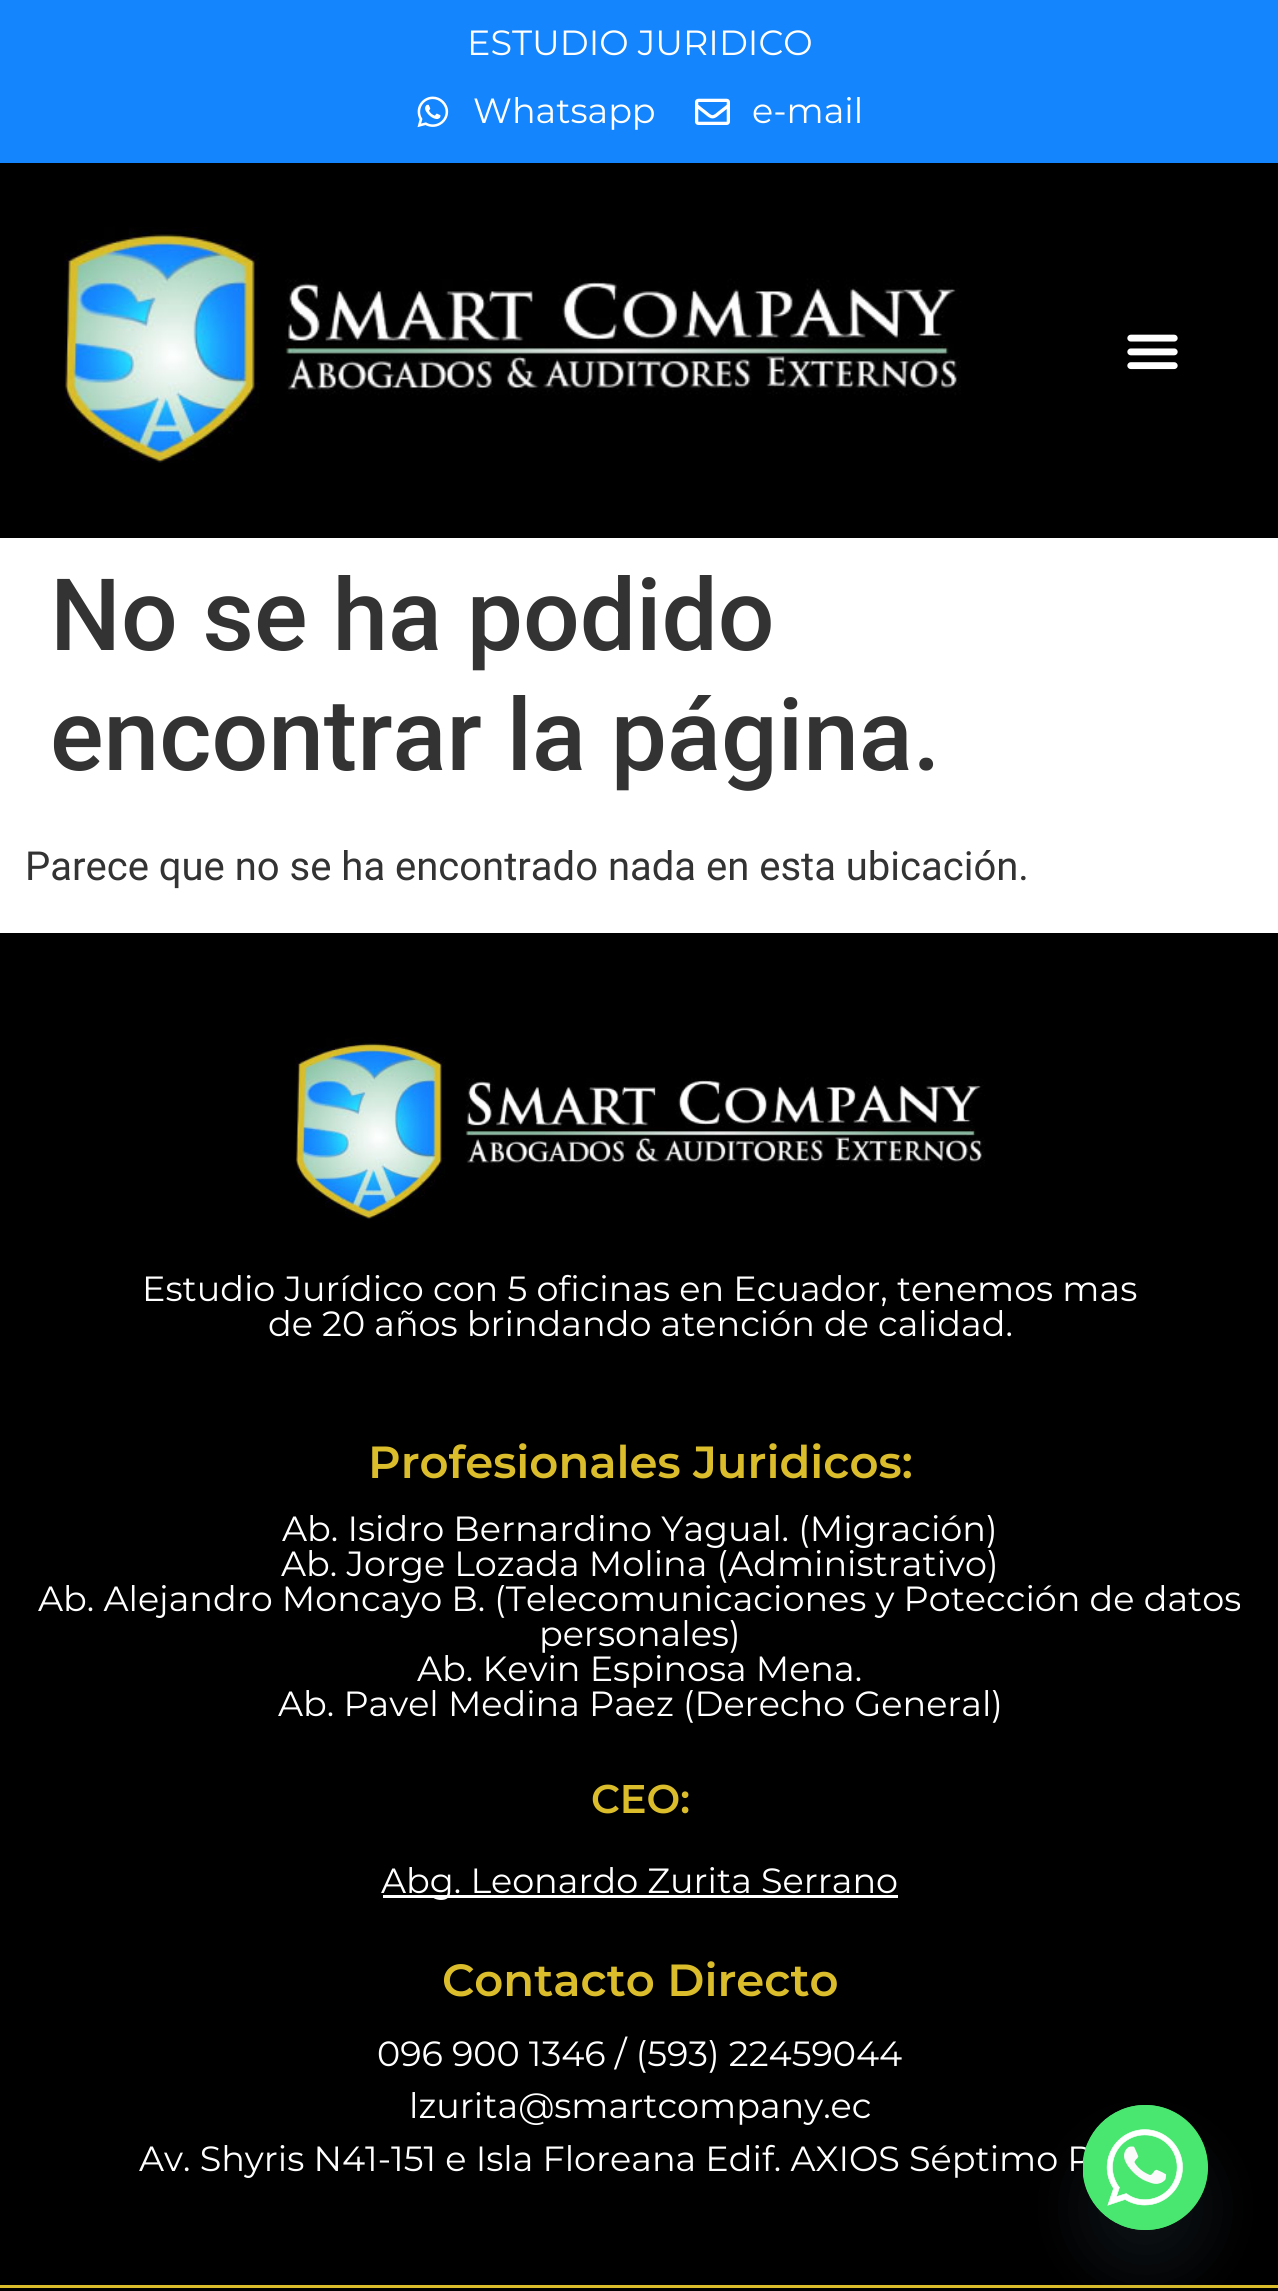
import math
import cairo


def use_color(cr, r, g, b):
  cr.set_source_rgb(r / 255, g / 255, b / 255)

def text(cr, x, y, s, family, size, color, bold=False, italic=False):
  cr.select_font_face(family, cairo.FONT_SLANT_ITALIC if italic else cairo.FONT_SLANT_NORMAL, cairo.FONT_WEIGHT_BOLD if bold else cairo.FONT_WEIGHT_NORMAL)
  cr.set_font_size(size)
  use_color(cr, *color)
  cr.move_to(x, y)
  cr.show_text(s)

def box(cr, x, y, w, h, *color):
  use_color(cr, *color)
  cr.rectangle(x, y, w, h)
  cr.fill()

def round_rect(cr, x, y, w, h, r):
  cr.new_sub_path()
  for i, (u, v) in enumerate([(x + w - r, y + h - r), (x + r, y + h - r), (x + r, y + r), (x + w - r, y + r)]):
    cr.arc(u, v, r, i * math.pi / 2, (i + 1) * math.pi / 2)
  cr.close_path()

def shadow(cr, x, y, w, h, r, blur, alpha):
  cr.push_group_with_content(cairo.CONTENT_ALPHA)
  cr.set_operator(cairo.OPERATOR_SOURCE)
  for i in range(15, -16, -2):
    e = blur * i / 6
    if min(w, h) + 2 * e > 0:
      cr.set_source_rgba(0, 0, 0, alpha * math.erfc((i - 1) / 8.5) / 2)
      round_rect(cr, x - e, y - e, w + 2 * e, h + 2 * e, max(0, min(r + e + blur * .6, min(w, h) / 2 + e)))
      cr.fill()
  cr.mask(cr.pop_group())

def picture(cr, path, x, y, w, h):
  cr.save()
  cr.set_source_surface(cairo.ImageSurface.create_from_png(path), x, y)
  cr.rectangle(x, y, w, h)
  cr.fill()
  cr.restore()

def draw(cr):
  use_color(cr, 255, 255, 255)
  cr.paint()
  box(cr, 0, 0, 1278, 163, 20, 133, 253)
  picture(cr, "img_01.png", 417, 96, 32, 32)
  picture(cr, "img_02.png", 695, 98, 35, 27)
  box(cr, 0, 163, 1278, 375, 0, 0, 0)
  picture(cr, "img_03.png", 64, 227, 897, 236)
  picture(cr, "img_04.png", 1127, 334, 51, 36)
  box(cr, 0, 933, 1278, 1352, 0, 0, 0)
  picture(cr, "img_05.png", 295, 1037, 690, 183)
  box(cr, 383, 1895, 515, 3, 255, 255, 255)
  box(cr, 0, 2288, 1278, 3, 0, 0, 0)
  box(cr, 0, 2285, 1278, 3, 219, 189, 43)
  use_color(cr, 73, 104, 126)
  shadow(cr, 1083, 2145, 125, 125, 62.5, 30, 0.16)
  text(cr, 467, 55, "ESTUDIO JURIDICO", "Montserrat", 35, (255, 255, 255))
  text(cr, 473, 123, "Whatsapp", "Montserrat", 35, (255, 255, 255))
  text(cr, 752, 123, "e-mail", "Montserrat", 35, (255, 255, 255))
  text(cr, 50, 650, "No se ha podido", "Roboto Medium", 100, (51, 51, 51))
  text(cr, 50, 770, "encontrar la página.", "Roboto Medium", 100, (51, 51, 51))
  text(cr, 25, 880, "Parece que no se ha encontrado nada en esta ubicación.", "Roboto", 40, (51, 51, 51))
  text(cr, 142, 1301, "Estudio Jurídico con 5 oficinas en Ecuador, tenemos mas", "Montserrat", 35, (255, 255, 255))
  text(cr, 268, 1336, "de 20 años brindando atención de calidad.", "Montserrat", 35, (255, 255, 255))
  text(cr, 368, 1478, "Profesionales Juridicos:", "Montserrat SemiBold", 45, (219, 189, 43))
  text(cr, 282, 1541, "Ab. Isidro Bernardino Yagual. (Migración)", "Montserrat", 35, (255, 255, 255))
  text(cr, 281, 1576, "Ab. Jorge Lozada Molina (Administrativo)", "Montserrat", 35, (255, 255, 255))
  text(cr, 38, 1611, "Ab. Alejandro Moncayo B. (Telecomunicaciones y Potección de datos", "Montserrat", 35, (255, 255, 255))
  text(cr, 539, 1646, "personales)", "Montserrat", 35, (255, 255, 255))
  text(cr, 417, 1681, "Ab. Kevin Espinosa Mena.", "Montserrat", 35, (255, 255, 255))
  text(cr, 278, 1716, "Ab. Pavel Medina Paez (Derecho General)", "Montserrat", 35, (255, 255, 255))
  text(cr, 591, 1813, "CEO:", "Montserrat SemiBold", 40, (219, 189, 43))
  text(cr, 381, 1893, "Abg. Leonardo Zurita Serrano", "Montserrat", 35, (255, 255, 255))
  text(cr, 442, 1996, "Contacto Directo", "Montserrat SemiBold", 45, (219, 189, 43))
  text(cr, 377, 2066, "096 900 1346 / (593) 22459044", "Montserrat", 35, (255, 255, 255))
  text(cr, 409, 2118, "lzurita@smartcompany.ec", "Montserrat", 35, (255, 255, 255))
  text(cr, 139, 2171, "Av. Shyris N41-151 e Isla Floreana Edif. AXIOS Séptimo P", "Montserrat", 35, (255, 255, 255))
  use_color(cr, 73, 230, 112)
  cr.new_path()
  cr.arc(1145.5, 2167.5, 62.5, 0, 2 * math.pi)
  cr.fill()
  picture(cr, "img_06.png", 1083, 2105, 125, 125)


surface = cairo.ImageSurface(cairo.FORMAT_RGB24, 1278, 2291)
cr = cairo.Context(surface)
options = cairo.FontOptions()
options.set_hint_metrics(cairo.HINT_METRICS_OFF)
options.set_hint_style(cairo.HINT_STYLE_NONE)
cr.set_font_options(options)
cr.set_miter_limit(4)
draw(cr)
surface.write_to_png("out.png")
